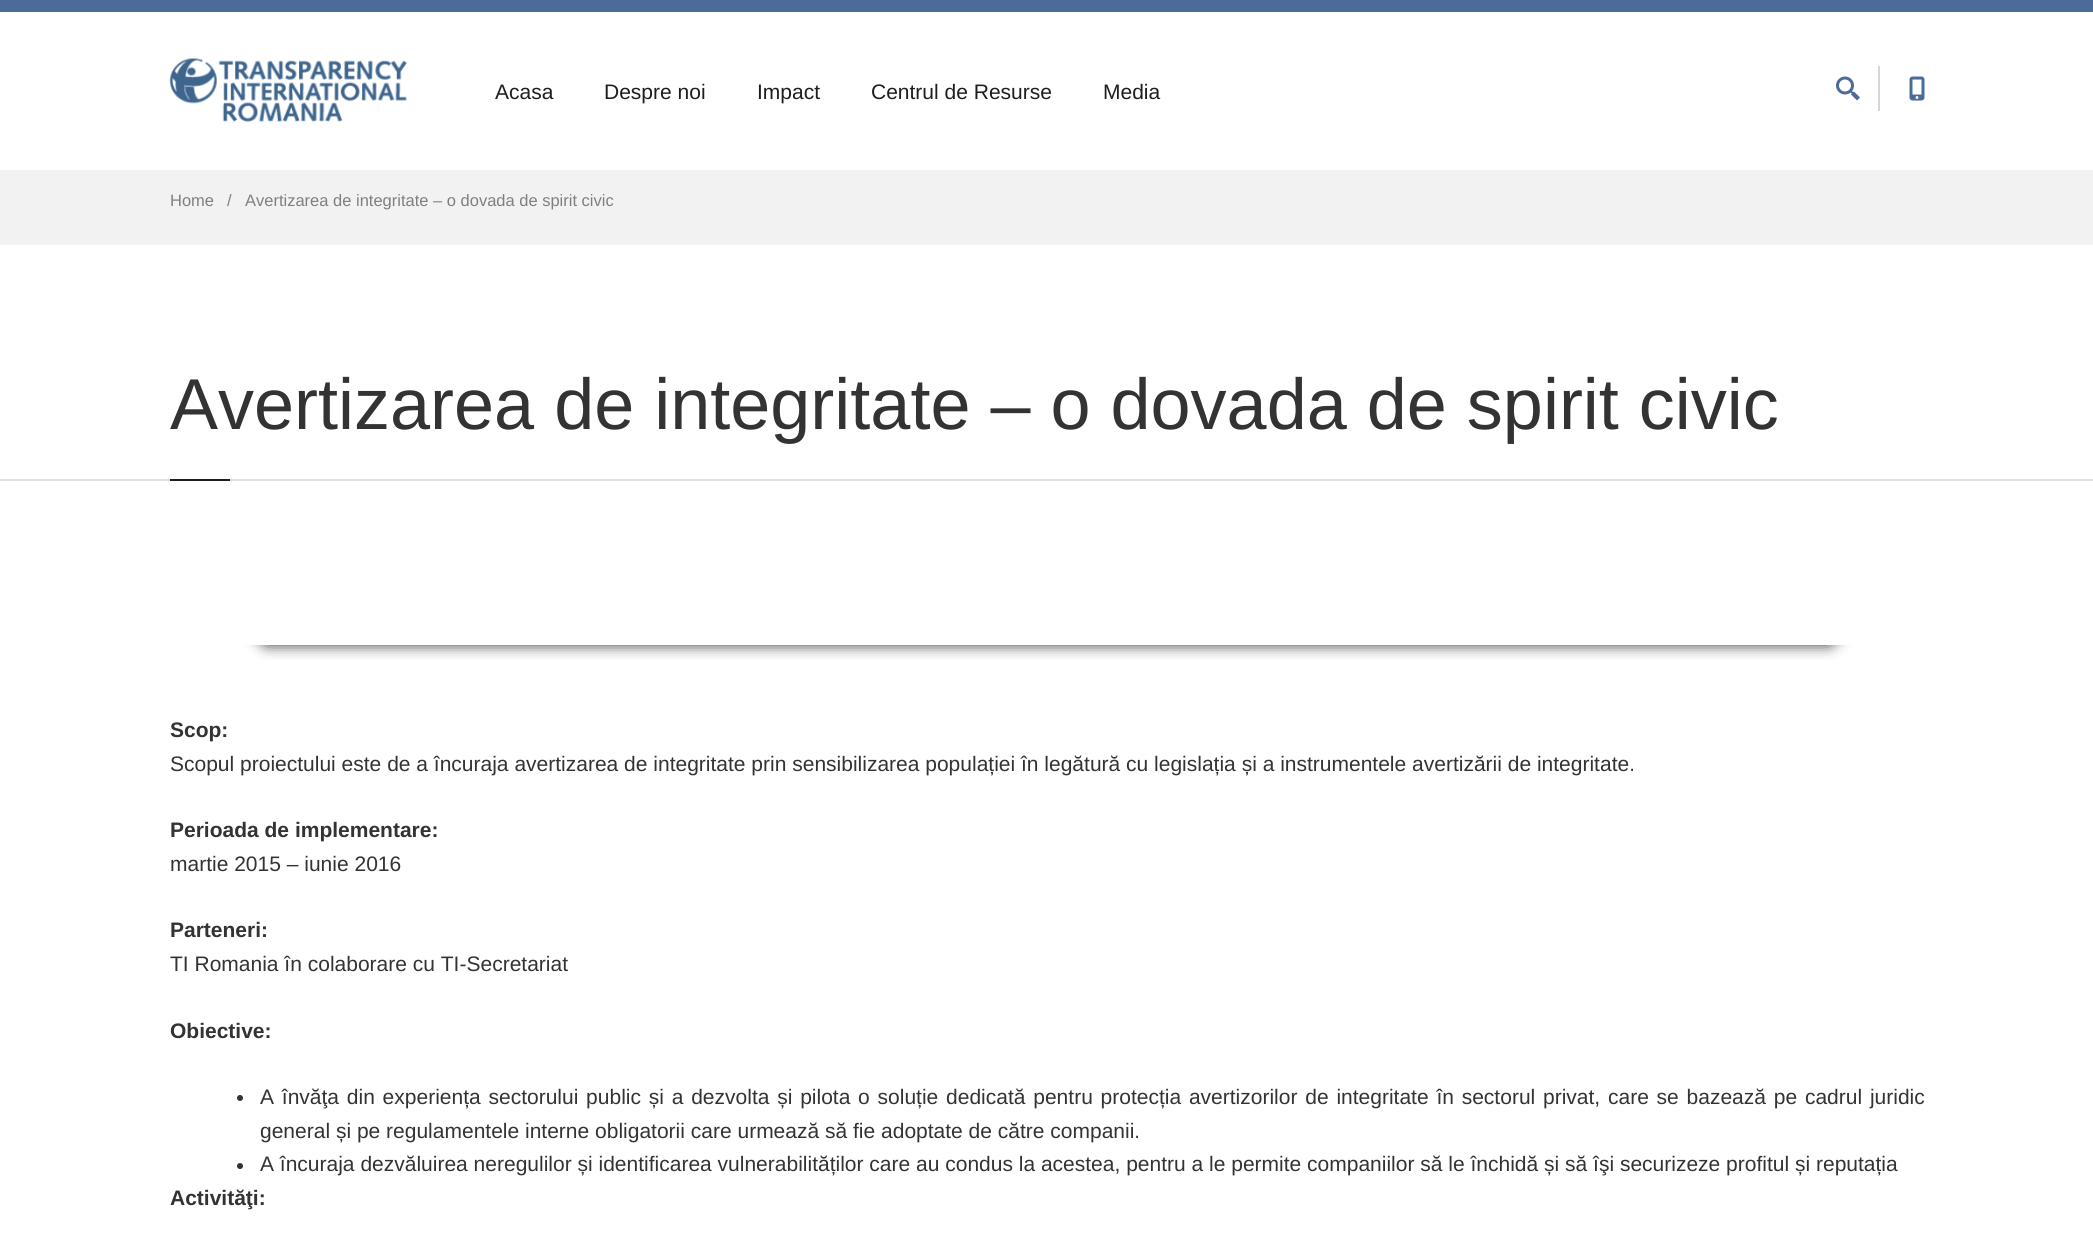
import math
import cairo


def use_color(cr, r, g, b):
  cr.set_source_rgb(r / 255, g / 255, b / 255)

def text(cr, x, y, s, family, size, color, bold=False, italic=False):
  cr.select_font_face(family, cairo.FONT_SLANT_ITALIC if italic else cairo.FONT_SLANT_NORMAL, cairo.FONT_WEIGHT_BOLD if bold else cairo.FONT_WEIGHT_NORMAL)
  cr.set_font_size(size)
  use_color(cr, *color)
  cr.move_to(x, y)
  cr.show_text(s)

def spaced_text(cr, x, y, s, letter, word):
  cr.move_to(x, y)
  for ch in s:
    cr.show_text(ch)
    cr.rel_move_to(letter + word * (ch == ' '), 0)

def box(cr, x, y, w, h, *color):
  use_color(cr, *color)
  cr.rectangle(x, y, w, h)
  cr.fill()

def round_rect(cr, x, y, w, h, r):
  cr.new_sub_path()
  for i, (u, v) in enumerate([(x + w - r, y + h - r), (x + r, y + h - r), (x + r, y + r), (x + w - r, y + r)]):
    cr.arc(u, v, r, i * math.pi / 2, (i + 1) * math.pi / 2)
  cr.close_path()

def shadow(cr, x, y, w, h, r, blur, alpha):
  cr.push_group_with_content(cairo.CONTENT_ALPHA)
  cr.set_operator(cairo.OPERATOR_SOURCE)
  for i in range(15, -16, -2):
    e = blur * i / 6
    if min(w, h) + 2 * e > 0:
      cr.set_source_rgba(0, 0, 0, alpha * math.erfc((i - 1) / 8.5) / 2)
      round_rect(cr, x - e, y - e, w + 2 * e, h + 2 * e, max(0, min(r + e + blur * .6, min(w, h) / 2 + e)))
      cr.fill()
  cr.mask(cr.pop_group())

def picture(cr, path, x, y, w, h):
  cr.save()
  cr.set_source_surface(cairo.ImageSurface.create_from_png(path), x, y)
  cr.rectangle(x, y, w, h)
  cr.fill()
  cr.restore()

def draw(cr):
  use_color(cr, 255, 255, 255)
  cr.paint()
  box(cr, 0, 0, 2093, 12, 76, 107, 153)
  picture(cr, "img_01.png", 169, 58, 238, 64)
  box(cr, 1878, 66, 2, 45, 214, 214, 214)
  picture(cr, "img_02.png", 1836, 76, 24, 25)
  picture(cr, "img_03.png", 1909, 76, 16, 25)
  box(cr, 0, 170, 2093, 75, 242, 242, 242)
  box(cr, 0, 479, 2093, 2, 225, 225, 225)
  box(cr, 170, 479, 60, 2, 30, 30, 30)
  cr.save()
  cr.rectangle(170, 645, 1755, 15)
  cr.clip()
  use_color(cr, 0, 0, 0)
  shadow(cr, 258, 615, 1580, 30, 15, 7.5, 0.8)
  cr.restore()
  use_color(cr, 51, 51, 51)
  cr.arc(240, 1098, 3, 0, 2 * math.pi)
  cr.fill()
  cr.arc(240, 1166, 3, 0, 2 * math.pi)
  cr.fill()
  text(cr, 495, 99, "Acasa", "Liberation Sans", 21, (30, 30, 30))
  text(cr, 604, 99, "Despre noi", "Liberation Sans", 21, (30, 30, 30))
  text(cr, 757, 99, "Impact", "Liberation Sans", 21, (30, 30, 30))
  text(cr, 871, 99, "Centrul de Resurse", "Liberation Sans", 21, (30, 30, 30))
  text(cr, 1103, 99, "Media", "Liberation Sans", 21, (30, 30, 30))
  text(cr, 170, 206, "Home", "Liberation Sans", 16.5, (127, 127, 127))
  text(cr, 227, 206, "/", "Liberation Sans", 16.5, (127, 127, 127))
  text(cr, 245, 206, "Avertizarea de integritate – o dovada de spirit civic", "Liberation Sans", 16.5, (127, 127, 127))
  text(cr, 170, 429, "Avertizarea de integritate – o dovada de spirit civic", "Liberation Sans", 72, (51, 51, 51))
  text(cr, 170, 737, "Scop:", "Liberation Sans", 21, (51, 51, 51), bold=True)
  text(cr, 170, 771, "Scopul proiectului este de a încuraja avertizarea de integritate prin sensibilizarea populației în legătură cu legislația și a instrumentele avertizării de integritate.", "Liberation Sans", 21, (51, 51, 51))
  text(cr, 170, 837, "Perioada de implementare:", "Liberation Sans", 21, (51, 51, 51), bold=True)
  text(cr, 170, 871, "martie 2015 – iunie 2016", "Liberation Sans", 21, (51, 51, 51))
  text(cr, 170, 937, "Parteneri:", "Liberation Sans", 21, (51, 51, 51), bold=True)
  text(cr, 170, 971, "TI Romania în colaborare cu TI-Secretariat", "Liberation Sans", 21, (51, 51, 51))
  text(cr, 170, 1038, "Obiective:", "Liberation Sans", 21, (51, 51, 51), bold=True)
  cr.select_font_face("Liberation Sans")
  spaced_text(cr, 260, 1104, "A învăţa din experiența sectorului public și a dezvolta și pilota o soluție dedicată pentru protecția avertizorilor de integritate în sectorul privat, care se bazează pe cadrul juridic", 0, 1.95)
  text(cr, 260, 1138, "general și pe regulamentele interne obligatorii care urmează să fie adoptate de către companii.", "Liberation Sans", 21, (51, 51, 51))
  text(cr, 260, 1171, "A încuraja dezvăluirea neregulilor și identificarea vulnerabilităților care au condus la acestea, pentru a le permite companiilor să le închidă și să îşi securizeze profitul și reputația", "Liberation Sans", 21, (51, 51, 51))
  text(cr, 170, 1205, "Activităţi:", "Liberation Sans", 21, (51, 51, 51), bold=True)


surface = cairo.ImageSurface(cairo.FORMAT_RGB24, 2093, 1249)
cr = cairo.Context(surface)
options = cairo.FontOptions()
options.set_hint_metrics(cairo.HINT_METRICS_OFF)
options.set_hint_style(cairo.HINT_STYLE_NONE)
cr.set_font_options(options)
cr.set_miter_limit(4)
draw(cr)
surface.write_to_png("out.png")
